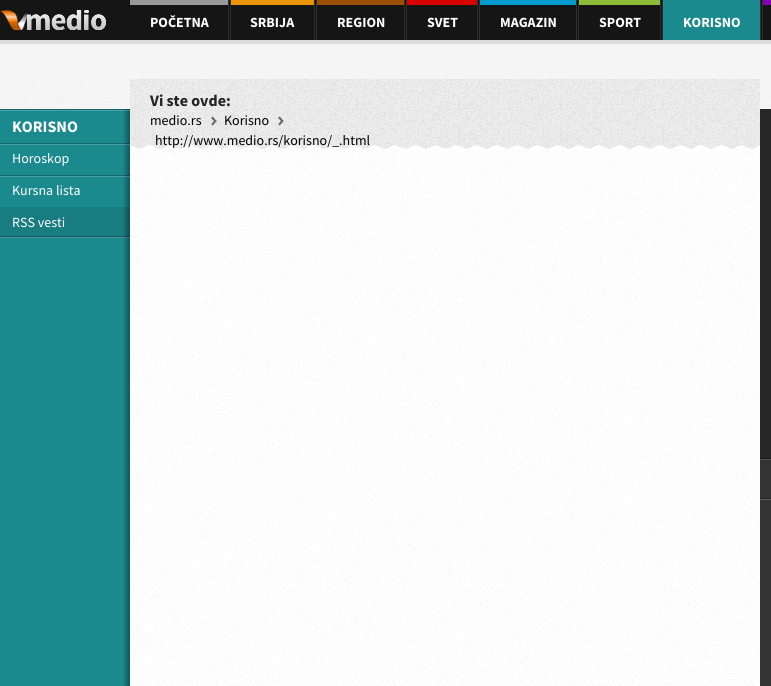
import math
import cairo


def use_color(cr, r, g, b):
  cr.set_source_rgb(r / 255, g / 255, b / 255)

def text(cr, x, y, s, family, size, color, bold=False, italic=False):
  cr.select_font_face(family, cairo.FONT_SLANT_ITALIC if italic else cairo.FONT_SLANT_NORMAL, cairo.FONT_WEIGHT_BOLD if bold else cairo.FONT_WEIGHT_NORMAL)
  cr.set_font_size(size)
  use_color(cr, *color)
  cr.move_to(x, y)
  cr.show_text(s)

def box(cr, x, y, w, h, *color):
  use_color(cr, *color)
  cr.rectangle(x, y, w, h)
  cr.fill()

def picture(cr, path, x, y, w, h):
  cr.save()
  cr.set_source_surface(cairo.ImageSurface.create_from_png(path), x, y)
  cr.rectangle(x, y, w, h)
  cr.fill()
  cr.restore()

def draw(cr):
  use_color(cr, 245, 245, 245)
  cr.paint()
  box(cr, 0, 0, 771, 40, 21, 21, 21)
  box(cr, 0, 40, 771, 4, 220, 220, 220)
  picture(cr, "img_01.png", 0, 10, 106, 20)
  box(cr, 228, 0, 1, 40, 45, 45, 45)
  box(cr, 130, 0, 98, 5, 153, 153, 153)
  box(cr, 314, 0, 1, 40, 45, 45, 45)
  box(cr, 230, 0, 1, 40, 45, 45, 45)
  box(cr, 231, 0, 83, 5, 236, 147, 2)
  box(cr, 404, 0, 1, 40, 45, 45, 45)
  box(cr, 316, 0, 1, 40, 45, 45, 45)
  box(cr, 317, 0, 87, 5, 157, 79, 0)
  box(cr, 477, 0, 1, 40, 45, 45, 45)
  box(cr, 406, 0, 1, 40, 45, 45, 45)
  box(cr, 407, 0, 70, 5, 217, 0, 0)
  box(cr, 576, 0, 1, 40, 45, 45, 45)
  box(cr, 479, 0, 1, 40, 45, 45, 45)
  box(cr, 480, 0, 96, 5, 1, 156, 205)
  box(cr, 660, 0, 1, 40, 45, 45, 45)
  box(cr, 578, 0, 1, 40, 45, 45, 45)
  box(cr, 579, 0, 81, 5, 141, 187, 57)
  box(cr, 663, 0, 97, 40, 27, 138, 143)
  box(cr, 760, 0, 1, 40, 45, 45, 45)
  box(cr, 662, 0, 1, 40, 45, 45, 45)
  box(cr, 762, 0, 1, 40, 45, 45, 45)
  box(cr, 763, 0, 8, 5, 133, 0, 178)
  box(cr, 0, 109, 130, 577, 27, 138, 143)
  picture(cr, "img_02.png", 123, 109, 7, 577)
  picture(cr, "img_03.png", 0, 79, 130, 30)
  picture(cr, "img_04.png", 0, 236, 130, 2)
  picture(cr, "img_04.png", 0, 109, 130, 2)
  picture(cr, "img_04.png", 0, 143, 130, 2)
  picture(cr, "img_04.png", 0, 175, 130, 2)
  cr.set_source_rgba(0, 0, 0, 0.1)
  cr.rectangle(0, 207, 130, 31)
  cr.fill()
  picture(cr, "img_05.png", 130, 150, 630, 536)
  box(cr, 130, 149, 630, 1, 255, 255, 255)
  picture(cr, "img_06.png", 130, 79, 630, 70)
  picture(cr, "img_07.png", 211, 116, 6, 10)
  picture(cr, "img_08.png", 278, 116, 6, 10)
  box(cr, 760, 460, 11, 226, 51, 51, 51)
  picture(cr, "img_09.png", 760, 79, 11, 30)
  box(cr, 760, 109, 11, 351, 38, 38, 38)
  picture(cr, "img_10.png", 760, 458, 11, 2)
  picture(cr, "img_11.png", 760, 498, 11, 2)
  text(cr, 150, 27, "POČETNA", "Source Sans Pro", 14, (255, 255, 255), bold=True)
  text(cr, 250, 27, "SRBIJA", "Source Sans Pro", 14, (255, 255, 255), bold=True)
  text(cr, 337, 27, "REGION", "Source Sans Pro", 14, (255, 255, 255), bold=True)
  text(cr, 427, 27, "SVET", "Source Sans Pro", 14, (255, 255, 255), bold=True)
  text(cr, 500, 27, "MAGAZIN", "Source Sans Pro", 14, (255, 255, 255), bold=True)
  text(cr, 599, 27, "SPORT", "Source Sans Pro", 14, (255, 255, 255), bold=True)
  text(cr, 683, 27, "KORISNO", "Source Sans Pro", 14, (255, 255, 255), bold=True)
  text(cr, 12, 132, "KORISNO", "Source Sans Pro", 16, (255, 255, 255), bold=True)
  text(cr, 12, 163, "Horoskop", "Source Sans Pro", 14, (255, 255, 255))
  text(cr, 12, 195, "Kursna lista", "Source Sans Pro", 14, (255, 255, 255))
  text(cr, 12, 227, "RSS vesti", "Source Sans Pro", 14, (255, 255, 255))
  text(cr, 150, 106, "Vi ste ovde:", "Source Sans Pro", 16, (34, 34, 34), bold=True)
  text(cr, 150, 125, "medio.rs", "Source Sans Pro", 14, (0, 0, 0))
  text(cr, 224, 125, "Korisno", "Source Sans Pro", 14, (0, 0, 0))
  text(cr, 155, 145, "http://www.medio.rs/korisno/_.html", "Source Sans Pro", 14, (0, 0, 0))


surface = cairo.ImageSurface(cairo.FORMAT_RGB24, 771, 686)
cr = cairo.Context(surface)
options = cairo.FontOptions()
options.set_hint_metrics(cairo.HINT_METRICS_OFF)
options.set_hint_style(cairo.HINT_STYLE_NONE)
cr.set_font_options(options)
cr.set_miter_limit(4)
draw(cr)
surface.write_to_png("out.png")
